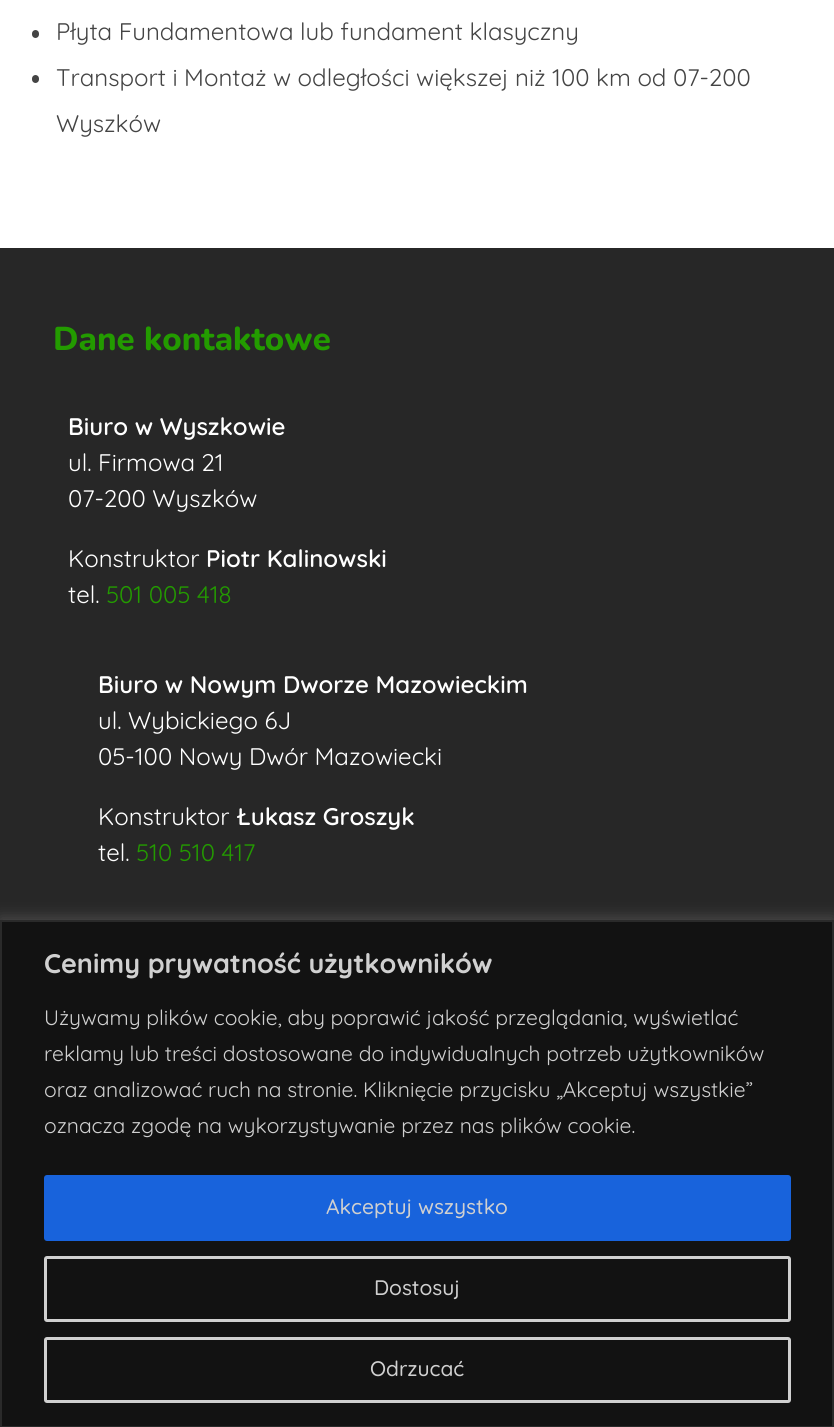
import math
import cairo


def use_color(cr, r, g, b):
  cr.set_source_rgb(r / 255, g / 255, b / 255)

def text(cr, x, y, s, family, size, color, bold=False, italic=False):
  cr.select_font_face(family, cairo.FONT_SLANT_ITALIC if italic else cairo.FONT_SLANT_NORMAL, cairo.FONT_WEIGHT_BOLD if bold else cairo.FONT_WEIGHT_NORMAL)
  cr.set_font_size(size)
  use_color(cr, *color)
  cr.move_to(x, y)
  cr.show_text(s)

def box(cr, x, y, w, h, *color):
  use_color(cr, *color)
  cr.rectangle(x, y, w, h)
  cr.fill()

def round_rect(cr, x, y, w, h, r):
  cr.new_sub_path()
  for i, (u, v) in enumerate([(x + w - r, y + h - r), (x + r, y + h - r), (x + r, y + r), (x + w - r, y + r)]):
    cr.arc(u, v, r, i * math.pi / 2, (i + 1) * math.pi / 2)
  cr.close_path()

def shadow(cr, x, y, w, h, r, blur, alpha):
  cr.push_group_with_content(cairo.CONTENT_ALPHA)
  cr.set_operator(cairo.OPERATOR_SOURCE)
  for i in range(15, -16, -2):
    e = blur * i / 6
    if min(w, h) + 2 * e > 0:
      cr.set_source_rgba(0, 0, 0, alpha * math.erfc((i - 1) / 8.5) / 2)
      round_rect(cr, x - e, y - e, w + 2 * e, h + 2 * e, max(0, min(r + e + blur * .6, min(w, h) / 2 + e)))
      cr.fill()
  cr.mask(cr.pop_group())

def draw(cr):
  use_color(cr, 255, 255, 255)
  cr.paint()
  use_color(cr, 68, 68, 68)
  round_rect(cr, 32, 30, 7, 8, 3.5)
  cr.fill()
  round_rect(cr, 32, 75, 7, 8, 3.5)
  cr.fill()
  box(cr, 0, 248, 834, 672, 39, 39, 39)
  use_color(cr, 172, 171, 171)
  shadow(cr, 0, 918, 834, 509, 0, 7.5, 0.3)
  use_color(cr, 18, 18, 18)
  cr.rectangle(1, 921, 832, 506)
  cr.fill_preserve()
  use_color(cr, 42, 42, 42)
  cr.stroke()
  use_color(cr, 24, 99, 220)
  round_rect(cr, 45.5, 1176.5, 744, 63, 1.5)
  cr.fill_preserve()
  cr.set_line_width(3)
  cr.stroke()
  round_rect(cr, 45.5, 1257.5, 744, 63, 1.5)
  use_color(cr, 208, 208, 208)
  cr.stroke()
  round_rect(cr, 45.5, 1338.5, 744, 63, 1.5)
  cr.stroke()
  text(cr, 56, 40, "Płyta Fundamentowa lub fundament klasyczny", "Quicksand", 24, (68, 68, 68))
  text(cr, 56, 86, "Transport i Montaż w odległości większej niż 100 km od 07-200", "Quicksand", 24, (68, 68, 68))
  text(cr, 56, 132, "Wyszków", "Quicksand", 24, (68, 68, 68))
  text(cr, 53, 350, "Dane kontaktowe", "Nunito ExtraBold", 33, (35, 155, 0))
  text(cr, 68, 435, "Biuro w Wyszkowie", "Quicksand SemiBold", 24, (255, 255, 255))
  text(cr, 68, 471, "ul. Firmowa 21", "Quicksand", 24, (255, 255, 255))
  text(cr, 68, 507, "07-200 Wyszków", "Quicksand", 24, (255, 255, 255))
  text(cr, 68, 567, "Konstruktor", "Quicksand", 24, (255, 255, 255))
  text(cr, 206, 567, "Piotr Kalinowski", "Quicksand SemiBold", 24, (255, 255, 255))
  text(cr, 68, 603, "tel.", "Quicksand", 24, (255, 255, 255))
  text(cr, 106, 603, "501 005 418", "Quicksand", 24, (35, 155, 0))
  text(cr, 98, 693, "Biuro w Nowym Dworze Mazowieckim", "Quicksand SemiBold", 24, (255, 255, 255))
  text(cr, 98, 729, "ul. Wybickiego 6J", "Quicksand", 24, (255, 255, 255))
  text(cr, 98, 765, "05-100 Nowy Dwór Mazowiecki", "Quicksand", 24, (255, 255, 255))
  text(cr, 98, 825, "Konstruktor", "Quicksand", 24, (255, 255, 255))
  text(cr, 236, 825, "Łukasz Groszyk", "Quicksand SemiBold", 24, (255, 255, 255))
  text(cr, 98, 861, "tel.", "Quicksand", 24, (255, 255, 255))
  text(cr, 136, 861, "510 510 417", "Quicksand", 24, (35, 155, 0))
  text(cr, 44, 973, "Cenimy prywatność użytkowników", "Quicksand", 27, (208, 208, 208), bold=True)
  text(cr, 44, 1025, "Używamy plików cookie, aby poprawić jakość przeglądania, wyświetlać", "Quicksand", 21, (208, 208, 208))
  text(cr, 44, 1061, "reklamy lub treści dostosowane do indywidualnych potrzeb użytkowników", "Quicksand", 21, (208, 208, 208))
  text(cr, 44, 1097, "oraz analizować ruch na stronie. Kliknięcie przycisku „Akceptuj wszystkie”", "Quicksand", 21, (208, 208, 208))
  text(cr, 44, 1133, "oznacza zgodę na wykorzystywanie przez nas plików cookie.", "Quicksand", 21, (208, 208, 208))
  text(cr, 326, 1214, "Akceptuj wszystko", "Quicksand Medium", 21, (208, 208, 208))
  text(cr, 374, 1295, "Dostosuj", "Quicksand Medium", 21, (208, 208, 208))
  text(cr, 370, 1376, "Odrzucać", "Quicksand Medium", 21, (208, 208, 208))


surface = cairo.ImageSurface(cairo.FORMAT_RGB24, 834, 1427)
cr = cairo.Context(surface)
options = cairo.FontOptions()
options.set_hint_metrics(cairo.HINT_METRICS_OFF)
options.set_hint_style(cairo.HINT_STYLE_NONE)
cr.set_font_options(options)
cr.set_miter_limit(4)
draw(cr)
surface.write_to_png("out.png")
